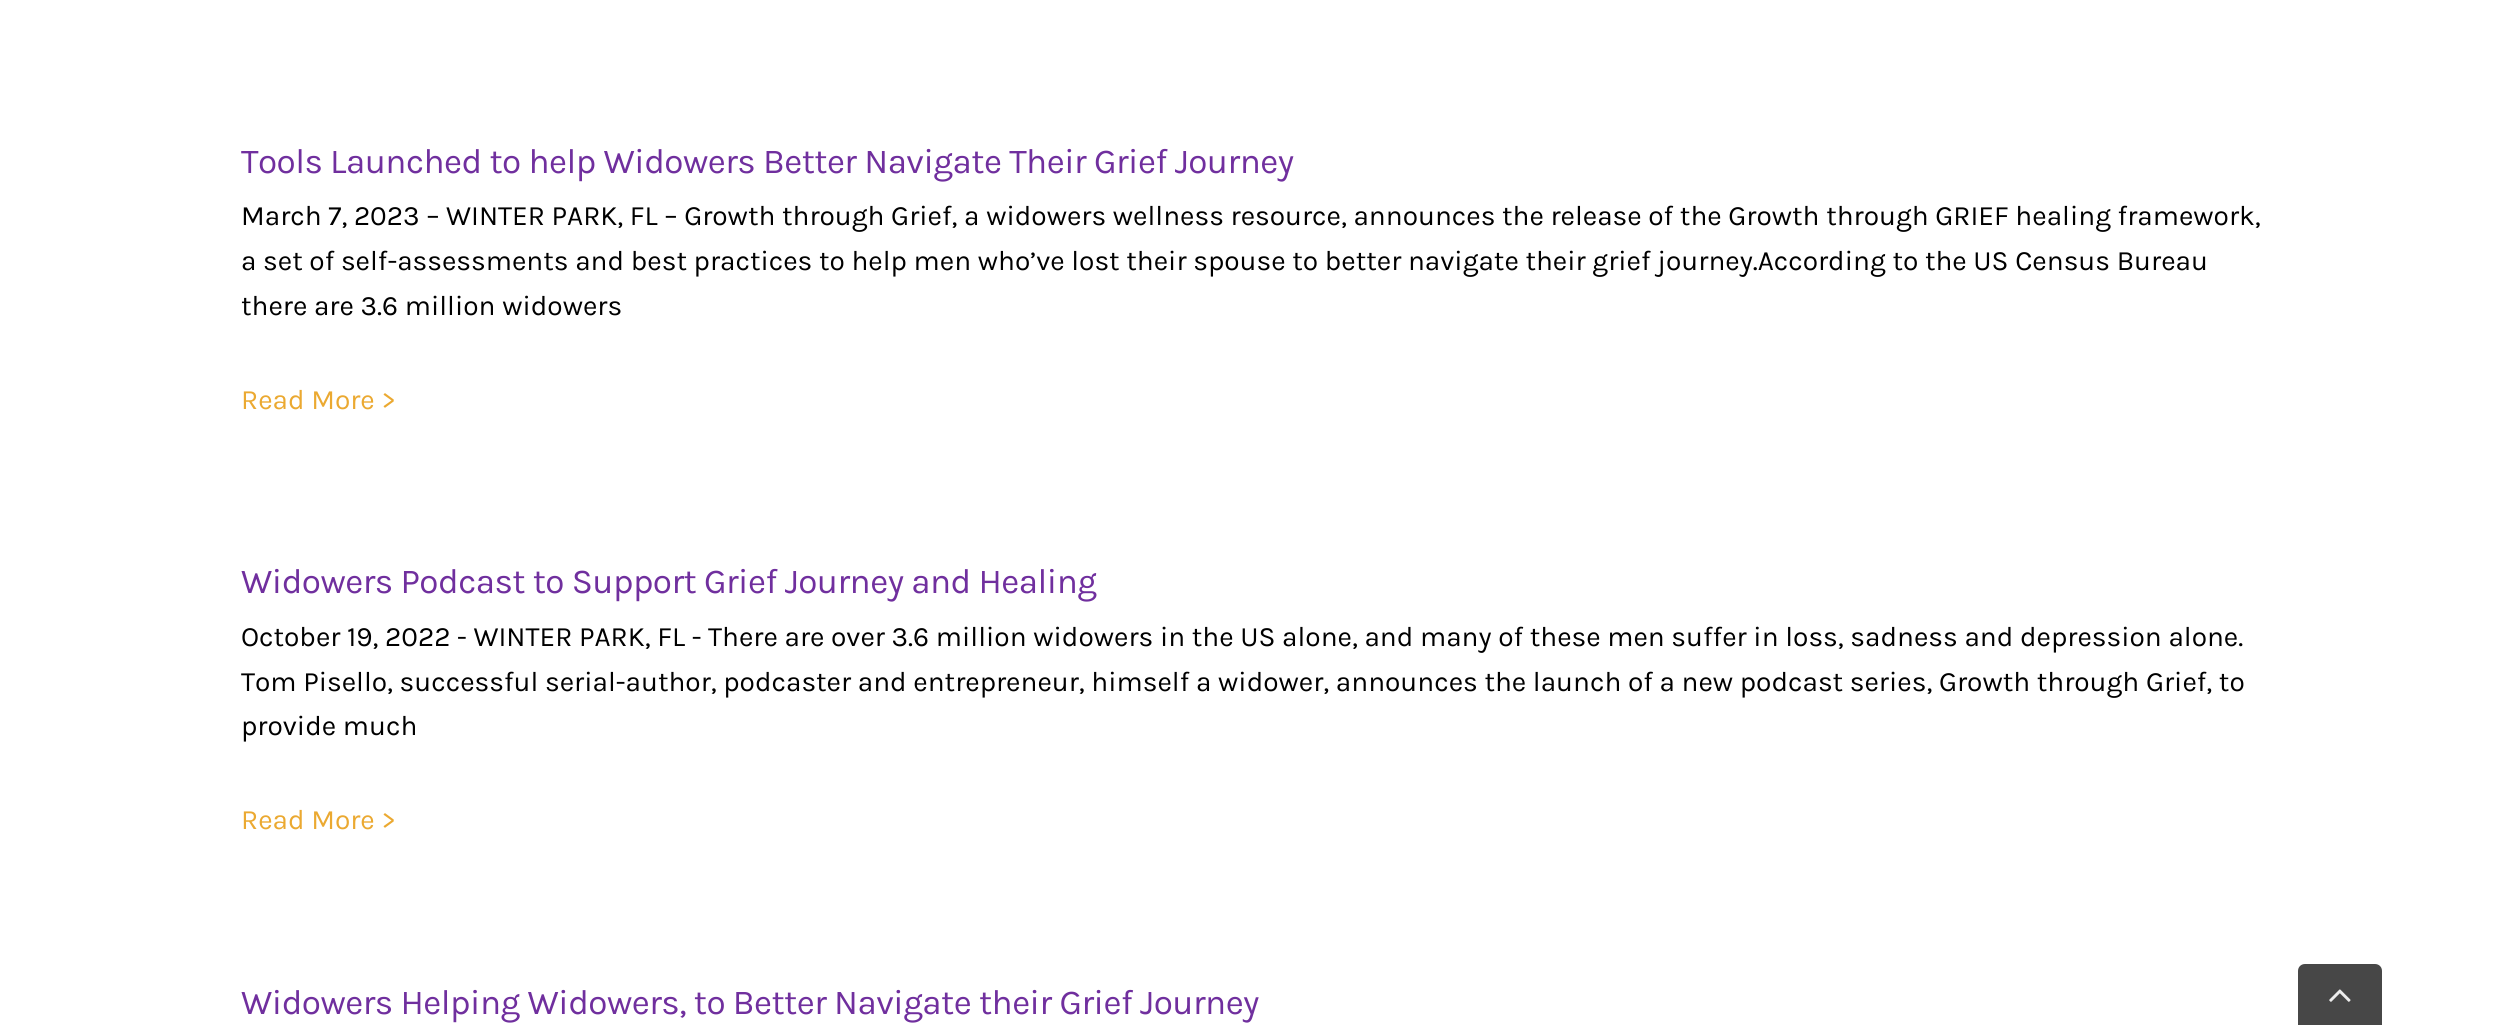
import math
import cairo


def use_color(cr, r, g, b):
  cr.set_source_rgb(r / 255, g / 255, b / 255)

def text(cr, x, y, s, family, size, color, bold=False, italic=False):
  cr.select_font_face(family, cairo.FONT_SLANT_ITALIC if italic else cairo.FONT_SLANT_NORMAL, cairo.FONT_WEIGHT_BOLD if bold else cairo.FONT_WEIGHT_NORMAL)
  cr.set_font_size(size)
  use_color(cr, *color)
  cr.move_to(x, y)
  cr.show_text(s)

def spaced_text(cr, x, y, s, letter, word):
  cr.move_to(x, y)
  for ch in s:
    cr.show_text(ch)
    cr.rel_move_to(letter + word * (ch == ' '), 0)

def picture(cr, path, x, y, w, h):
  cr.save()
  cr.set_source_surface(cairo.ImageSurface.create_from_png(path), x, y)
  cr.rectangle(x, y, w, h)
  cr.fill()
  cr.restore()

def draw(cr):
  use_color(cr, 255, 255, 255)
  cr.paint()
  use_color(cr, 71, 71, 71)
  cr.new_path()
  cr.move_to(2305, 964)
  cr.line_to(2375, 964)
  cr.curve_to(2379, 964, 2382, 967, 2382, 971)
  cr.line_to(2382, 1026)
  cr.line_to(2298, 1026)
  cr.line_to(2298, 971)
  cr.curve_to(2298, 967, 2301, 964, 2305, 964)
  cr.close_path()
  cr.fill()
  picture(cr, "img_01.png", 2329, 989, 22, 13)
  cr.select_font_face("Karla")
  cr.set_font_size(35)
  use_color(cr, 112, 47, 158)
  spaced_text(cr, 241, 173, "Tools Launched to help Widowers Better Navigate Their Grief Journey", -0.53, 0)
  text(cr, 241, 225, "March 7, 2023 – WINTER PARK, FL – Growth through Grief, a widowers wellness resource, announces the release of the Growth through GRIEF healing framework,", "Karla", 28, (0, 0, 0))
  text(cr, 241, 270, "a set of self-assessments and best practices to help men who’ve lost their spouse to better navigate their grief journey.According to the US Census Bureau", "Karla", 28, (0, 0, 0))
  text(cr, 241, 315, "there are 3.6 million widowers", "Karla", 28, (0, 0, 0))
  text(cr, 241, 409, "Read More >", "Karla", 28, (235, 169, 49))
  cr.set_font_size(35)
  use_color(cr, 112, 47, 158)
  spaced_text(cr, 241, 593, "Widowers Podcast to Support Grief Journey and Healing", -0.53, 0)
  text(cr, 241, 646, "October 19, 2022 - WINTER PARK, FL - There are over 3.6 million widowers in the US alone, and many of these men suffer in loss, sadness and depression alone.", "Karla", 28, (0, 0, 0))
  text(cr, 241, 691, "Tom Pisello, successful serial-author, podcaster and entrepreneur, himself a widower, announces the launch of a new podcast series, Growth through Grief, to", "Karla", 28, (0, 0, 0))
  text(cr, 241, 735, "provide much", "Karla", 28, (0, 0, 0))
  text(cr, 241, 829, "Read More >", "Karla", 28, (235, 169, 49))
  cr.set_font_size(35)
  use_color(cr, 112, 47, 158)
  spaced_text(cr, 241, 1014, "Widowers Helping Widowers, to Better Navigate their Grief Journey", -0.53, 0)


surface = cairo.ImageSurface(cairo.FORMAT_RGB24, 2513, 1025)
cr = cairo.Context(surface)
options = cairo.FontOptions()
options.set_hint_metrics(cairo.HINT_METRICS_OFF)
options.set_hint_style(cairo.HINT_STYLE_NONE)
cr.set_font_options(options)
cr.set_miter_limit(4)
draw(cr)
surface.write_to_png("out.png")
